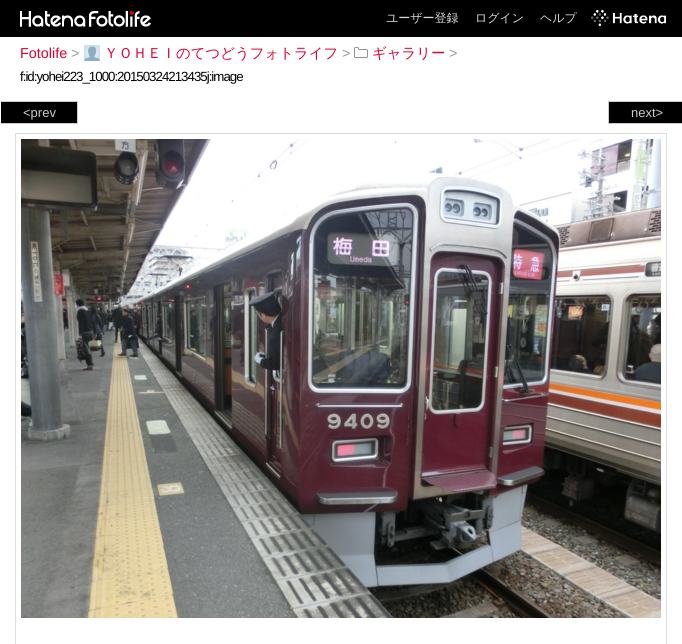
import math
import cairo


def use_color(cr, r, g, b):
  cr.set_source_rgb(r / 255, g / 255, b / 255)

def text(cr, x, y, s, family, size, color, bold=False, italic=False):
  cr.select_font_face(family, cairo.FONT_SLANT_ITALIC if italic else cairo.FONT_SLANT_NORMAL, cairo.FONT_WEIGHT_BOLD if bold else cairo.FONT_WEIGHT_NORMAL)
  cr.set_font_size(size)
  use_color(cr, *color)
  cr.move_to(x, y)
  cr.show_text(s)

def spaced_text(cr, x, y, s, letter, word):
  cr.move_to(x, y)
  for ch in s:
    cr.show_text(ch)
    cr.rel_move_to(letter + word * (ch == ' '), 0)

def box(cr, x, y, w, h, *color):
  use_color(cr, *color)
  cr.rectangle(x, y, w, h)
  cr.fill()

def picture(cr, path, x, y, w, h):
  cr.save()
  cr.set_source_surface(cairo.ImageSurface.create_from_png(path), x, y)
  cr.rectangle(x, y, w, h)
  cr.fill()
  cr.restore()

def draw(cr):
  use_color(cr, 255, 255, 255)
  cr.paint()
  box(cr, 0, 0, 682, 37, 0, 0, 0)
  picture(cr, "img_01.png", 20, 11, 66, 16)
  picture(cr, "img_02.png", 89, 11, 62, 16)
  picture(cr, "img_03.png", 591, 10, 75, 16)
  picture(cr, "img_04.png", 84, 45, 16, 16)
  picture(cr, "img_05.png", 354, 47, 14, 11)
  box(cr, 1, 102, 76, 21, 0, 0, 0)
  box(cr, 1, 101, 77, 1, 204, 204, 204)
  box(cr, 77, 101, 1, 23, 204, 204, 204)
  box(cr, 1, 123, 77, 1, 204, 204, 204)
  box(cr, 609, 102, 73, 21, 0, 0, 0)
  box(cr, 608, 101, 74, 1, 204, 204, 204)
  box(cr, 608, 123, 74, 1, 204, 204, 204)
  box(cr, 608, 101, 1, 23, 204, 204, 204)
  cr.rectangle(15.5, 133.5, 651, 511)
  use_color(cr, 222, 222, 222)
  cr.set_line_width(1)
  cr.stroke()
  picture(cr, "img_06.png", 21, 139, 640, 479)
  text(cr, 386, 22, "ユーザー登録", "WenQuanYi Zen Hei Medium", 12, (221, 221, 221))
  text(cr, 475, 22, "ログイン", "WenQuanYi Zen Hei Medium", 12, (221, 221, 221))
  text(cr, 540, 22, "ヘルプ", "WenQuanYi Zen Hei Medium", 12, (221, 221, 221))
  text(cr, 20, 58, "Fotolife", "Liberation Sans", 14.4, (222, 0, 47))
  text(cr, 71, 58, ">", "Liberation Sans", 14.4, (153, 153, 153))
  text(cr, 104, 58, "ＹＯＨＥＩのてつどうフォトライフ", "WenQuanYi Zen Hei Medium", 14.4, (222, 0, 47))
  text(cr, 342, 58, ">", "Liberation Sans", 14.4, (153, 153, 153))
  text(cr, 372, 58, "ギャラリー", "WenQuanYi Zen Hei Medium", 14.4, (222, 0, 47))
  text(cr, 449, 58, ">", "Liberation Sans", 14.4, (153, 153, 153))
  cr.set_font_size(13.3)
  use_color(cr, 0, 0, 0)
  spaced_text(cr, 20, 81, "f:id:yohei223_1000:20150324213435j:image", -1, 0)
  text(cr, 23, 117, "<prev", "Liberation Sans", 13, (204, 204, 204))
  text(cr, 631, 117, "next>", "Liberation Sans", 13, (204, 204, 204))


surface = cairo.ImageSurface(cairo.FORMAT_RGB24, 682, 644)
cr = cairo.Context(surface)
options = cairo.FontOptions()
options.set_hint_metrics(cairo.HINT_METRICS_OFF)
options.set_hint_style(cairo.HINT_STYLE_NONE)
cr.set_font_options(options)
cr.set_miter_limit(4)
draw(cr)
surface.write_to_png("out.png")
